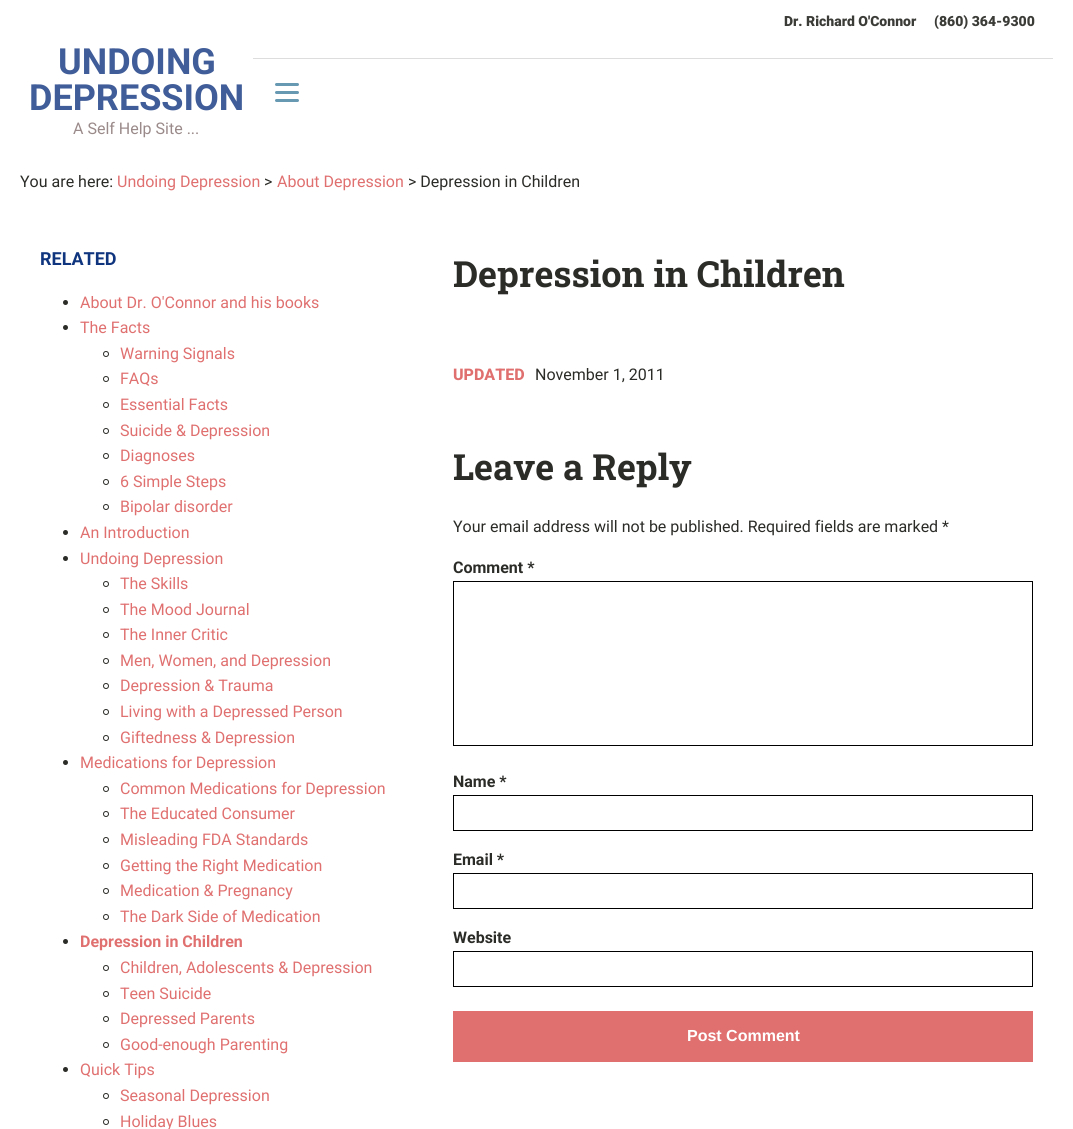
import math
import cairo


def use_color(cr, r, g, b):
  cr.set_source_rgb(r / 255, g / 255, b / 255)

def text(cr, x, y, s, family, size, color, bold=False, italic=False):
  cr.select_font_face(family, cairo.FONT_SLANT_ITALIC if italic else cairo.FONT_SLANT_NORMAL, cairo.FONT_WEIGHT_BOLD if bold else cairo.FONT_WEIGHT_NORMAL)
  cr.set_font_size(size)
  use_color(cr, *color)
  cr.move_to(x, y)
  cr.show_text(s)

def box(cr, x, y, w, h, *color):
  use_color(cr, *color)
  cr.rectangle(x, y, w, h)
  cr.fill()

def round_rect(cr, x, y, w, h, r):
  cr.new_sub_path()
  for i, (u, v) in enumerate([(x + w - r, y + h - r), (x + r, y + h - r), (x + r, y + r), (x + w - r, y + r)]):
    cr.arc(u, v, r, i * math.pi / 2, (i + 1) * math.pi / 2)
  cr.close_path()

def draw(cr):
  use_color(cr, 255, 255, 255)
  cr.paint()
  box(cr, 253, 58, 800, 1, 221, 221, 221)
  use_color(cr, 103, 153, 178)
  round_rect(cr, 275, 83, 24, 3, 1.5)
  cr.fill()
  round_rect(cr, 275, 91, 24, 3, 1.5)
  cr.fill()
  round_rect(cr, 275, 99, 24, 3, 1.5)
  cr.fill()
  use_color(cr, 43, 44, 40)
  cr.arc(65.5, 302.5, 2.5, 0, 2 * math.pi)
  cr.fill()
  cr.arc(65.5, 327.5, 2.5, 0, 2 * math.pi)
  cr.fill()
  cr.arc(106, 354, 2.5, 0, 2 * math.pi)
  cr.set_line_width(1)
  cr.stroke()
  cr.arc(106, 379, 2.5, 0, 2 * math.pi)
  cr.stroke()
  cr.arc(106, 405, 2.5, 0, 2 * math.pi)
  cr.stroke()
  cr.arc(106, 431, 2.5, 0, 2 * math.pi)
  cr.stroke()
  cr.arc(106, 456, 2.5, 0, 2 * math.pi)
  cr.stroke()
  cr.arc(106, 482, 2.5, 0, 2 * math.pi)
  cr.stroke()
  cr.arc(106, 507, 2.5, 0, 2 * math.pi)
  cr.stroke()
  cr.arc(65.5, 532.5, 2.5, 0, 2 * math.pi)
  cr.fill()
  cr.arc(65.5, 558.5, 2.5, 0, 2 * math.pi)
  cr.fill()
  cr.arc(106, 584, 2.5, 0, 2 * math.pi)
  cr.stroke()
  cr.arc(106, 610, 2.5, 0, 2 * math.pi)
  cr.stroke()
  cr.arc(106, 635, 2.5, 0, 2 * math.pi)
  cr.stroke()
  cr.arc(106, 661, 2.5, 0, 2 * math.pi)
  cr.stroke()
  cr.arc(106, 686, 2.5, 0, 2 * math.pi)
  cr.stroke()
  cr.arc(106, 712, 2.5, 0, 2 * math.pi)
  cr.stroke()
  cr.arc(106, 738, 2.5, 0, 2 * math.pi)
  cr.stroke()
  cr.arc(65.5, 762.5, 2.5, 0, 2 * math.pi)
  cr.fill()
  cr.arc(106, 789, 2.5, 0, 2 * math.pi)
  cr.stroke()
  cr.arc(106, 814, 2.5, 0, 2 * math.pi)
  cr.stroke()
  cr.arc(106, 840, 2.5, 0, 2 * math.pi)
  cr.stroke()
  cr.arc(106, 866, 2.5, 0, 2 * math.pi)
  cr.stroke()
  cr.arc(106, 891, 2.5, 0, 2 * math.pi)
  cr.stroke()
  cr.arc(106, 917, 2.5, 0, 2 * math.pi)
  cr.stroke()
  cr.arc(65.5, 941.5, 2.5, 0, 2 * math.pi)
  cr.fill()
  cr.arc(106, 968, 2.5, 0, 2 * math.pi)
  cr.stroke()
  cr.arc(106, 994, 2.5, 0, 2 * math.pi)
  cr.stroke()
  cr.arc(106, 1019, 2.5, 0, 2 * math.pi)
  cr.stroke()
  cr.arc(106, 1045, 2.5, 0, 2 * math.pi)
  cr.stroke()
  cr.arc(65.5, 1069.5, 2.5, 0, 2 * math.pi)
  cr.fill()
  cr.arc(106, 1096, 2.5, 0, 2 * math.pi)
  cr.stroke()
  cr.arc(106, 1122, 2.5, 0, 2 * math.pi)
  cr.stroke()
  cr.rectangle(453.5, 581.5, 579, 164)
  use_color(cr, 0, 0, 0)
  cr.stroke()
  cr.rectangle(453.5, 795.5, 579, 35)
  cr.stroke()
  cr.rectangle(453.5, 873.5, 579, 35)
  cr.stroke()
  cr.rectangle(453.5, 951.5, 579, 35)
  cr.stroke()
  box(cr, 453, 1011, 580, 51, 224, 112, 112)
  text(cr, 784, 26, "Dr. Richard O'Connor", "Roboto Black", 14, (59, 60, 56))
  text(cr, 934, 26, "(860) 364-9300", "Roboto Black", 14, (59, 60, 56))
  text(cr, 58, 74, "UNDOING", "Roboto", 36, (64, 93, 153), bold=True)
  text(cr, 29, 110, "DEPRESSION", "Roboto", 36, (64, 93, 153), bold=True)
  text(cr, 73, 134, "A Self Help Site ...", "Roboto", 16, (155, 138, 138))
  text(cr, 20, 187, "You are here:", "Roboto", 16, (43, 44, 40))
  text(cr, 117, 187, "Undoing Depression", "Roboto", 16, (224, 112, 112))
  text(cr, 264, 187, ">", "Roboto", 16, (43, 44, 40))
  text(cr, 277, 187, "About Depression", "Roboto", 16, (224, 112, 112))
  text(cr, 408, 187, "> Depression in Children", "Roboto", 16, (43, 44, 40))
  text(cr, 40, 265, "RELATED", "Roboto", 18, (16, 53, 127), bold=True)
  text(cr, 80, 308, "About Dr. O'Connor and his books", "Roboto", 16, (224, 112, 112))
  text(cr, 80, 333, "The Facts", "Roboto", 16, (224, 112, 112))
  text(cr, 120, 359, "Warning Signals", "Roboto", 16, (224, 112, 112))
  text(cr, 120, 384, "FAQs", "Roboto", 16, (224, 112, 112))
  text(cr, 120, 410, "Essential Facts", "Roboto", 16, (224, 112, 112))
  text(cr, 120, 436, "Suicide & Depression", "Roboto", 16, (224, 112, 112))
  text(cr, 120, 461, "Diagnoses", "Roboto", 16, (224, 112, 112))
  text(cr, 120, 487, "6 Simple Steps", "Roboto", 16, (224, 112, 112))
  text(cr, 120, 512, "Bipolar disorder", "Roboto", 16, (224, 112, 112))
  text(cr, 80, 538, "An Introduction", "Roboto", 16, (224, 112, 112))
  text(cr, 80, 564, "Undoing Depression", "Roboto", 16, (224, 112, 112))
  text(cr, 120, 589, "The Skills", "Roboto", 16, (224, 112, 112))
  text(cr, 120, 615, "The Mood Journal", "Roboto", 16, (224, 112, 112))
  text(cr, 120, 640, "The Inner Critic", "Roboto", 16, (224, 112, 112))
  text(cr, 120, 666, "Men, Women, and Depression", "Roboto", 16, (224, 112, 112))
  text(cr, 120, 691, "Depression & Trauma", "Roboto", 16, (224, 112, 112))
  text(cr, 120, 717, "Living with a Depressed Person", "Roboto", 16, (224, 112, 112))
  text(cr, 120, 743, "Giftedness & Depression", "Roboto", 16, (224, 112, 112))
  text(cr, 80, 768, "Medications for Depression", "Roboto", 16, (224, 112, 112))
  text(cr, 120, 794, "Common Medications for Depression", "Roboto", 16, (224, 112, 112))
  text(cr, 120, 819, "The Educated Consumer", "Roboto", 16, (224, 112, 112))
  text(cr, 120, 845, "Misleading FDA Standards", "Roboto", 16, (224, 112, 112))
  text(cr, 120, 871, "Getting the Right Medication", "Roboto", 16, (224, 112, 112))
  text(cr, 120, 896, "Medication & Pregnancy", "Roboto", 16, (224, 112, 112))
  text(cr, 120, 922, "The Dark Side of Medication", "Roboto", 16, (224, 112, 112))
  text(cr, 80, 947, "Depression in Children", "Roboto", 16, (224, 112, 112), bold=True)
  text(cr, 120, 973, "Children, Adolescents & Depression", "Roboto", 16, (224, 112, 112))
  text(cr, 120, 999, "Teen Suicide", "Roboto", 16, (224, 112, 112))
  text(cr, 120, 1024, "Depressed Parents", "Roboto", 16, (224, 112, 112))
  text(cr, 120, 1050, "Good-enough Parenting", "Roboto", 16, (224, 112, 112))
  text(cr, 80, 1075, "Quick Tips", "Roboto", 16, (224, 112, 112))
  text(cr, 120, 1101, "Seasonal Depression", "Roboto", 16, (224, 112, 112))
  text(cr, 120, 1127, "Holiday Blues", "Roboto", 16, (224, 112, 112))
  text(cr, 453, 287, "Depression in Children", "Roboto Slab", 36, (43, 44, 40), bold=True)
  text(cr, 453, 380, "UPDATED", "Roboto ExtraBold", 16, (224, 112, 112))
  text(cr, 535, 380, "November 1, 2011", "Roboto", 16, (43, 44, 40))
  text(cr, 453, 480, "Leave a Reply", "Roboto Slab", 36, (43, 44, 40), bold=True)
  text(cr, 453, 532, "Your email address will not be published. Required fields are marked *", "Roboto", 16, (43, 44, 40))
  text(cr, 453, 573, "Comment *", "Roboto", 16, (43, 44, 40), bold=True)
  text(cr, 453, 787, "Name *", "Roboto", 16, (43, 44, 40), bold=True)
  text(cr, 453, 865, "Email *", "Roboto", 16, (43, 44, 40), bold=True)
  text(cr, 453, 943, "Website", "Roboto", 16, (43, 44, 40), bold=True)
  text(cr, 687, 1041, "Post Comment", "Liberation Sans", 16, (255, 255, 255), bold=True)


surface = cairo.ImageSurface(cairo.FORMAT_RGB24, 1073, 1129)
cr = cairo.Context(surface)
options = cairo.FontOptions()
options.set_hint_metrics(cairo.HINT_METRICS_OFF)
options.set_hint_style(cairo.HINT_STYLE_NONE)
cr.set_font_options(options)
cr.set_miter_limit(4)
draw(cr)
surface.write_to_png("out.png")
